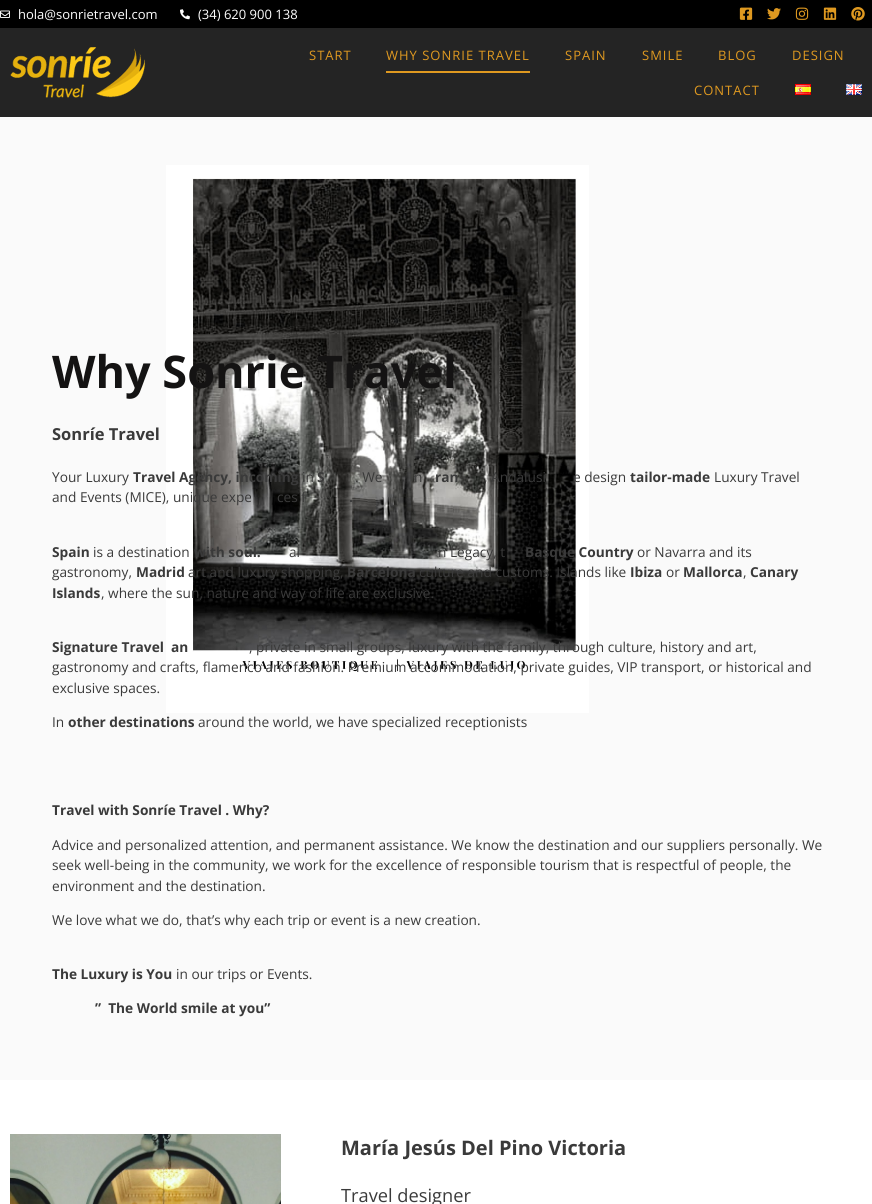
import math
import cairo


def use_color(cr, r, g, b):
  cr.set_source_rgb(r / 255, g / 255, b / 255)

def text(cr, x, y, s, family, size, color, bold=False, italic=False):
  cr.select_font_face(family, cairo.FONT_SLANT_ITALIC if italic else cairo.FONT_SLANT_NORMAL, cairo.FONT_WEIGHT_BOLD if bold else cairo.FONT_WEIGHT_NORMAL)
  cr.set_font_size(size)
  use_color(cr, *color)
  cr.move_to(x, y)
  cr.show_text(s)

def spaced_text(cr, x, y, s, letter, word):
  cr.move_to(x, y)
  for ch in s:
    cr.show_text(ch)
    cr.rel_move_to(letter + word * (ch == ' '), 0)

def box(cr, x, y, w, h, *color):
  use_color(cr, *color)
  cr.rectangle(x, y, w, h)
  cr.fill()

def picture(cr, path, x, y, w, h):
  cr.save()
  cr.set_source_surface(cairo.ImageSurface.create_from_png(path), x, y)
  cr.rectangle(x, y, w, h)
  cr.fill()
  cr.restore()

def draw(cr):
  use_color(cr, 255, 255, 255)
  cr.paint()
  box(cr, 0, 0, 872, 28, 0, 0, 0)
  picture(cr, "img_01.png", 0, 10, 10, 8)
  picture(cr, "img_02.png", 180, 9, 10, 11)
  picture(cr, "img_03.png", 739, 7, 14, 13)
  picture(cr, "img_04.png", 767, 8, 14, 12)
  picture(cr, "img_05.png", 795, 7, 14, 13)
  picture(cr, "img_06.png", 823, 7, 14, 13)
  picture(cr, "img_07.png", 851, 7, 14, 14)
  box(cr, 0, 28, 872, 89, 36, 36, 36)
  picture(cr, "img_08.png", 10, 47, 135, 51)
  box(cr, 386, 71, 144, 2, 223, 153, 32)
  picture(cr, "img_09.png", 795, 84, 16, 11)
  picture(cr, "img_10.png", 846, 84, 16, 11)
  box(cr, 0, 117, 872, 963, 250, 250, 250)
  picture(cr, "img_11.png", 166, 165, 423, 548)
  picture(cr, "img_12.png", 10, 1134, 271, 70)
  text(cr, 18, 19, "hola@sonrietravel.com", "Open Sans", 13, (255, 255, 255))
  text(cr, 198, 19, "(34) 620 900 138", "Open Sans", 13, (255, 255, 255))
  use_color(cr, 223, 153, 32)
  spaced_text(cr, 309, 60, "START", 1, 0)
  spaced_text(cr, 386, 60, "WHY SONRIE TRAVEL", 1, 0)
  spaced_text(cr, 565, 60, "SPAIN", 1, 0)
  spaced_text(cr, 642, 60, "SMILE", 1, 0)
  spaced_text(cr, 718, 60, "BLOG", 1, 0)
  spaced_text(cr, 792, 60, "DESIGN", 1, 0)
  spaced_text(cr, 694, 95, "CONTACT", 1, 0)
  text(cr, 52, 388, "Why Sonrie Travel", "Open Sans", 45, (20, 19, 19), bold=True)
  text(cr, 52, 440, "Sonríe Travel", "Open Sans", 16.5, (58, 58, 58), bold=True)
  text(cr, 52, 482, "Your Luxury", "Open Sans", 13.68, (58, 58, 58))
  text(cr, 133, 482, "Travel Agency, incoming", "Open Sans", 13.68, (58, 58, 58), bold=True)
  text(cr, 302, 482, "in", "Open Sans", 13.68, (58, 58, 58))
  text(cr, 317, 482, "S", "Open Sans", 13.68, (58, 58, 58), bold=True)
  text(cr, 355, 482, ". We", "Open Sans", 13.68, (58, 58, 58))
  text(cr, 414, 482, "n", "Open Sans", 13.68, (58, 58, 58))
  text(cr, 435, 482, "ran", "Open Sans", 13.68, (58, 58, 58), bold=True)
  text(cr, 484, 482, ", Andalusi", "Open Sans", 13.68, (58, 58, 58))
  text(cr, 573, 482, "e design", "Open Sans", 13.68, (58, 58, 58))
  text(cr, 630, 482, "tailor-made", "Open Sans", 13.68, (58, 58, 58), bold=True)
  text(cr, 714, 482, "Luxury Travel", "Open Sans", 13.68, (58, 58, 58))
  text(cr, 52, 502, "and Events (MICE), unique expe", "Open Sans", 13.68, (58, 58, 58))
  text(cr, 277, 502, "ces f", "Open Sans", 13.68, (58, 58, 58))
  text(cr, 349, 502, ".", "Open Sans", 13.68, (58, 58, 58), bold=True)
  text(cr, 52, 557, "Spain", "Open Sans", 13.68, (58, 58, 58), bold=True)
  text(cr, 93, 557, "is a destination", "Open Sans", 13.68, (58, 58, 58))
  text(cr, 194, 557, "with soul.", "Open Sans", 13.68, (58, 58, 58), bold=True)
  text(cr, 289, 557, "al", "Open Sans", 13.68, (58, 58, 58))
  text(cr, 438, 557, "n Legacy, t", "Open Sans", 13.68, (58, 58, 58))
  text(cr, 525, 557, "Basque Country", "Open Sans", 13.68, (58, 58, 58), bold=True)
  text(cr, 637, 557, "or Navarra and its", "Open Sans", 13.68, (58, 58, 58))
  text(cr, 52, 577, "gastronomy,", "Open Sans", 13.68, (58, 58, 58))
  text(cr, 136, 577, "Madrid", "Open Sans", 13.68, (58, 58, 58), bold=True)
  text(cr, 188, 577, "art and luxury shopping,", "Open Sans", 13.68, (58, 58, 58))
  text(cr, 347, 577, "Barcelona", "Open Sans", 13.68, (58, 58, 58), bold=True)
  text(cr, 419, 577, "culture and customs. Islands like", "Open Sans", 13.68, (58, 58, 58))
  text(cr, 630, 577, "Ibiza", "Open Sans", 13.68, (58, 58, 58), bold=True)
  text(cr, 666, 577, "or", "Open Sans", 13.68, (58, 58, 58))
  text(cr, 683, 577, "Mallorca", "Open Sans", 13.68, (58, 58, 58), bold=True)
  text(cr, 743, 577, ",", "Open Sans", 13.68, (58, 58, 58))
  text(cr, 750, 577, "Canary", "Open Sans", 13.68, (58, 58, 58), bold=True)
  text(cr, 52, 598, "Islands", "Open Sans", 13.68, (58, 58, 58), bold=True)
  text(cr, 101, 598, ", where the sun, nature and way of life are exclusive.", "Open Sans", 13.68, (58, 58, 58))
  text(cr, 52, 652, "Signature Travel  an", "Open Sans", 13.68, (58, 58, 58), bold=True)
  text(cr, 249, 652, ", private in small groups, luxury with the family, through culture, history and art,", "Open Sans", 13.68, (58, 58, 58))
  text(cr, 52, 672, "gastronomy and crafts, flamenco and fashion. Premium accommodation, private guides, VIP transport, or historical and", "Open Sans", 13.68, (58, 58, 58))
  text(cr, 52, 693, "exclusive spaces.", "Open Sans", 13.68, (58, 58, 58))
  text(cr, 52, 727, "In", "Open Sans", 13.68, (58, 58, 58))
  text(cr, 68, 727, "other destinations", "Open Sans", 13.68, (58, 58, 58), bold=True)
  text(cr, 198, 727, "around the world, we have specialized receptionists", "Open Sans", 13.68, (58, 58, 58))
  text(cr, 52, 815, "Travel with Sonríe Travel . Why?", "Open Sans", 13.68, (58, 58, 58), bold=True)
  text(cr, 52, 850, "Advice and personalized attention, and permanent assistance. We know the destination and our suppliers personally. We", "Open Sans", 13.68, (58, 58, 58))
  text(cr, 52, 870, "seek well-being in the community, we work for the excellence of responsible tourism that is respectful of people, the", "Open Sans", 13.68, (58, 58, 58))
  text(cr, 52, 891, "environment and the destination.", "Open Sans", 13.68, (58, 58, 58))
  text(cr, 52, 925, "We love what we do, that’s why each trip or event is a new creation.", "Open Sans", 13.68, (58, 58, 58))
  text(cr, 52, 979, "The Luxury is You", "Open Sans", 13.68, (58, 58, 58), bold=True)
  text(cr, 176, 979, "in our trips or Events.", "Open Sans", 13.68, (58, 58, 58))
  text(cr, 95, 1013, "”  The World smile at you”", "Open Sans", 13.68, (58, 58, 58), bold=True)
  text(cr, 341, 1155, "María Jesús Del Pino Victoria", "Open Sans", 20, (58, 58, 58), bold=True)
  text(cr, 341, 1202, "Travel designer", "Open Sans", 18.25, (58, 58, 58))


surface = cairo.ImageSurface(cairo.FORMAT_RGB24, 872, 1204)
cr = cairo.Context(surface)
options = cairo.FontOptions()
options.set_hint_metrics(cairo.HINT_METRICS_OFF)
options.set_hint_style(cairo.HINT_STYLE_NONE)
cr.set_font_options(options)
cr.set_miter_limit(4)
draw(cr)
surface.write_to_png("out.png")
